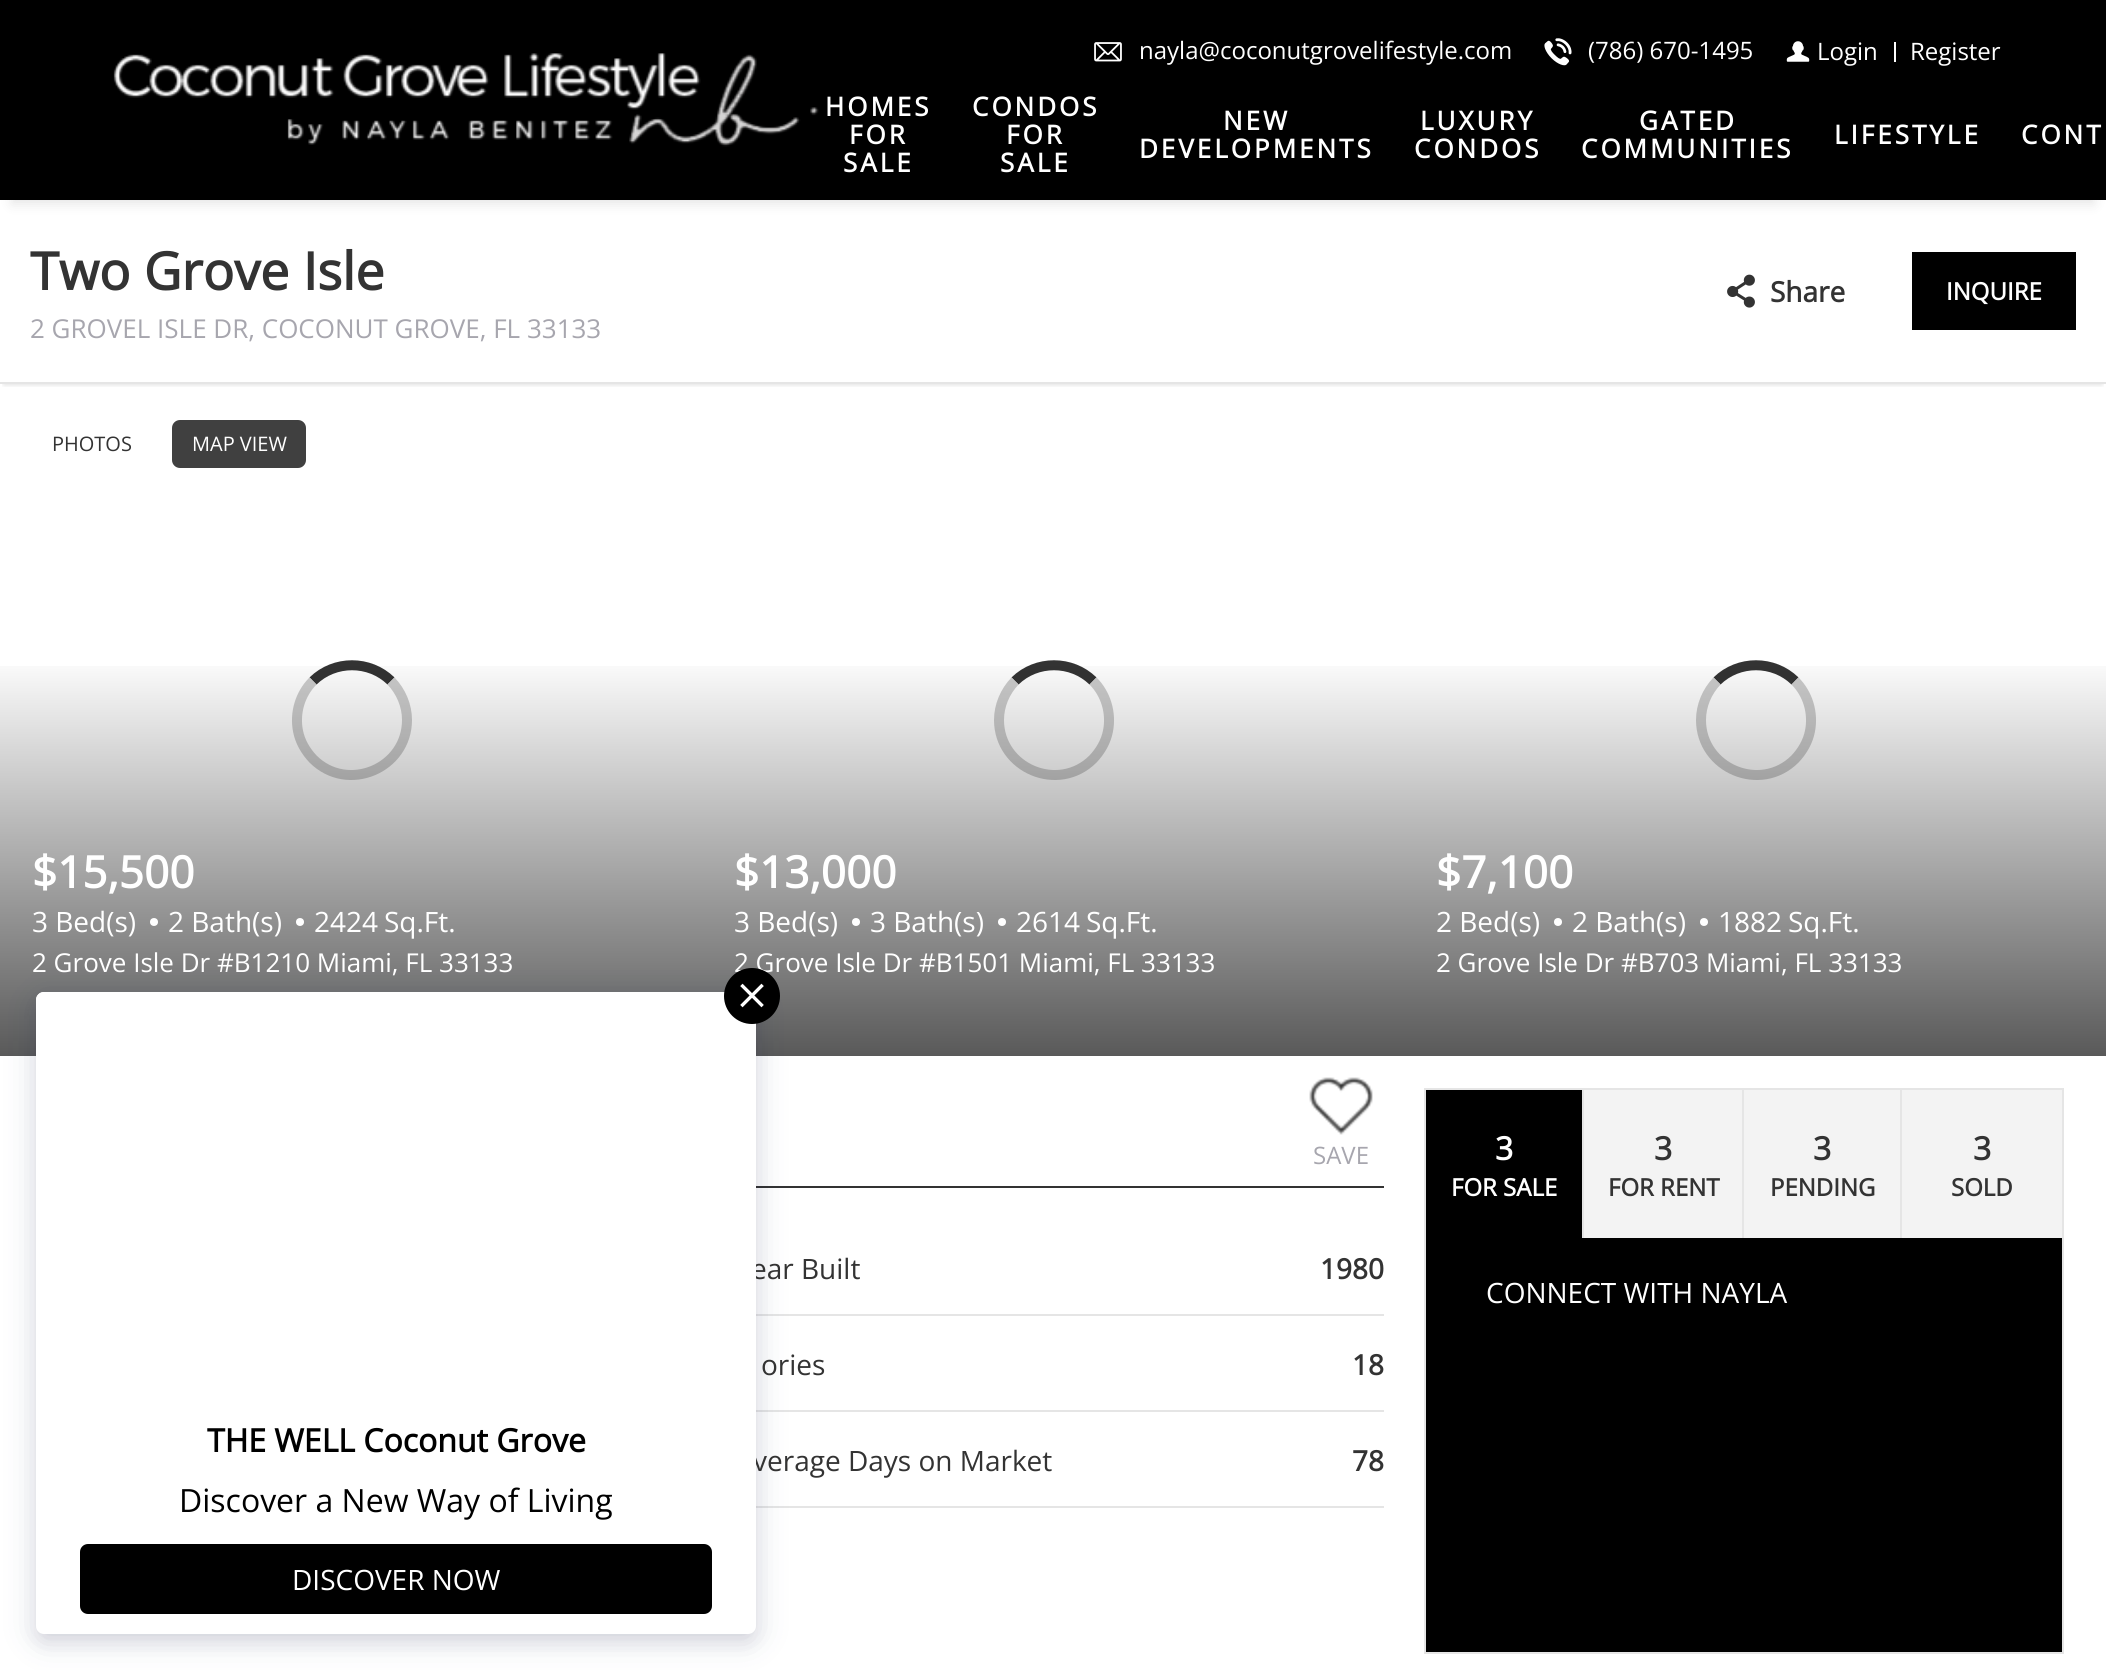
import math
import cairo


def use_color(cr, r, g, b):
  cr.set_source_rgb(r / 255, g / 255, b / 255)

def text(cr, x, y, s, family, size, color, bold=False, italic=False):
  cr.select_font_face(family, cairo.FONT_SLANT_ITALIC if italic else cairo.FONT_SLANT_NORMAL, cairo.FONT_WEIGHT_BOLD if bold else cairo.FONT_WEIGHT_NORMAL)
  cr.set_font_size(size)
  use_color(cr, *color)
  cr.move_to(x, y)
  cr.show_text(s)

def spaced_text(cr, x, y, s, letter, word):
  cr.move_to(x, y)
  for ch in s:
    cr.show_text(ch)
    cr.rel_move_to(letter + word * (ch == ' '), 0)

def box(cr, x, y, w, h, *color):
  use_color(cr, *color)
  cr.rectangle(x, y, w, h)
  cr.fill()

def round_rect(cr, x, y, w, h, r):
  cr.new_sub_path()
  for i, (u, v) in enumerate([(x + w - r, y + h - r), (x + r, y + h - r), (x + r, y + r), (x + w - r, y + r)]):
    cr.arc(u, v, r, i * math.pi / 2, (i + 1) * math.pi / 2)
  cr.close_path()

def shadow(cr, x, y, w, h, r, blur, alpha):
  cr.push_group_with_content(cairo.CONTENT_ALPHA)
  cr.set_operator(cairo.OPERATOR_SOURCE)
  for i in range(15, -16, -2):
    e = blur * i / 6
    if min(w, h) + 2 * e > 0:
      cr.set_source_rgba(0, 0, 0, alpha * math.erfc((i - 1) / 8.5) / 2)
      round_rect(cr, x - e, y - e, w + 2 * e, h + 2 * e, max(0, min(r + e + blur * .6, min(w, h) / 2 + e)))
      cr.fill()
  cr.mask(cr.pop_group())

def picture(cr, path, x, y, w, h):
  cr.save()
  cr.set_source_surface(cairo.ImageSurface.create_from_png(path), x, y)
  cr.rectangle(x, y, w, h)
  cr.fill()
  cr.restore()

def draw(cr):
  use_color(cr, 255, 255, 255)
  cr.paint()
  use_color(cr, 0, 0, 0)
  shadow(cr, 12, 28, 2082, 176, 0, 6, 0.1)
  cr.save()
  cr.rectangle(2, 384, 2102, 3)
  cr.clip()
  shadow(cr, 4, 208, 2098, 176, 0, 3, 0.16)
  cr.restore()
  box(cr, 0, 0, 2106, 200, 0, 0, 0)
  picture(cr, "img_01.png", 1094, 42, 28, 20)
  picture(cr, "img_02.png", 1544, 38, 28, 28)
  picture(cr, "img_03.png", 1786, 41, 24, 21)
  box(cr, 1894, 42, 2, 20, 255, 255, 255)
  picture(cr, "img_04.png", 113, 53, 706, 94)
  box(cr, 0, 382, 2106, 2, 229, 229, 229)
  picture(cr, "img_05.png", 1727, 274, 28, 34)
  box(cr, 1912, 252, 164, 78, 0, 0, 0)
  use_color(cr, 64, 64, 64)
  round_rect(cr, 172, 420, 134, 48, 8)
  cr.fill()
  cr.new_path()
  cr.move_to(313, 681)
  cr.curve_to(334.5, 660, 369.5, 660, 391, 681)
  use_color(cr, 51, 51, 51)
  cr.set_line_width(10)
  cr.stroke()
  cr.new_path()
  cr.move_to(391, 681)
  cr.curve_to(401, 691.5, 407, 705.5, 407, 720)
  cr.curve_to(407, 768.5, 347.5, 793.5, 313, 759)
  cr.curve_to(305.5, 751, 300, 741.5, 298, 731)
  cr.curve_to(294.5, 713, 300, 694, 313, 681)
  use_color(cr, 204, 204, 204)
  cr.stroke()
  gradient = cairo.LinearGradient(351, 384, 351, 1056)
  gradient.add_color_stop_rgba(0.4, 0, 0, 0, 0)
  gradient.add_color_stop_rgba(1, 0, 0, 0, 0.65)
  cr.set_source(gradient)
  cr.rectangle(0, 666, 702, 390)
  cr.fill()
  use_color(cr, 255, 255, 255)
  cr.arc(154, 922, 4, 0, 2 * math.pi)
  cr.fill()
  cr.arc(300, 922, 4, 0, 2 * math.pi)
  cr.fill()
  cr.new_path()
  cr.move_to(1015, 681)
  cr.curve_to(1036.5, 660, 1071.5, 660, 1093, 681)
  use_color(cr, 51, 51, 51)
  cr.stroke()
  cr.new_path()
  cr.move_to(1093, 681)
  cr.curve_to(1106, 694, 1111.5, 713, 1108, 731)
  cr.curve_to(1106, 741.5, 1100.5, 751, 1093, 759)
  cr.curve_to(1058.5, 793.5, 999, 768.5, 999, 720)
  cr.curve_to(999, 705.5, 1005, 691.5, 1015, 681)
  use_color(cr, 204, 204, 204)
  cr.stroke()
  gradient = cairo.LinearGradient(1053, 384, 1053, 1056)
  gradient.add_color_stop_rgba(0.4, 0, 0, 0, 0)
  gradient.add_color_stop_rgba(1, 0, 0, 0, 0.65)
  cr.set_source(gradient)
  cr.rectangle(702, 666, 702, 390)
  cr.fill()
  use_color(cr, 255, 255, 255)
  cr.arc(856, 922, 4, 0, 2 * math.pi)
  cr.fill()
  cr.arc(1002, 922, 4, 0, 2 * math.pi)
  cr.fill()
  cr.new_path()
  cr.move_to(1717, 681)
  cr.curve_to(1738.5, 660, 1773.5, 660, 1795, 681)
  use_color(cr, 51, 51, 51)
  cr.stroke()
  cr.new_path()
  cr.move_to(1795, 681)
  cr.curve_to(1808, 694, 1813.5, 713, 1810, 731)
  cr.curve_to(1808, 741.5, 1802.5, 751, 1795, 759)
  cr.curve_to(1760.5, 793.5, 1701, 768.5, 1701, 720)
  cr.curve_to(1701, 705.5, 1707, 691.5, 1717, 681)
  use_color(cr, 204, 204, 204)
  cr.stroke()
  gradient = cairo.LinearGradient(1755, 384, 1755, 1056)
  gradient.add_color_stop_rgba(0.4, 0, 0, 0, 0)
  gradient.add_color_stop_rgba(1, 0, 0, 0, 0.65)
  cr.set_source(gradient)
  cr.rectangle(1404, 666, 702, 390)
  cr.fill()
  use_color(cr, 255, 255, 255)
  cr.arc(1558, 922, 4, 0, 2 * math.pi)
  cr.fill()
  cr.arc(1704, 922, 4, 0, 2 * math.pi)
  cr.fill()
  box(cr, 756, 1186, 628, 2, 51, 51, 51)
  picture(cr, "img_06.png", 1309, 1077, 64, 58)
  box(cr, 756, 1314, 628, 2, 229, 229, 229)
  box(cr, 756, 1410, 628, 2, 229, 229, 229)
  box(cr, 756, 1506, 628, 2, 229, 229, 229)
  cr.rectangle(1425, 1089, 638, 564)
  cr.set_line_width(2)
  cr.stroke()
  box(cr, 1426, 1090, 156, 148, 0, 0, 0)
  box(cr, 1582, 1090, 2, 148, 229, 229, 229)
  box(cr, 1584, 1090, 158, 148, 243, 243, 243)
  box(cr, 1742, 1090, 2, 148, 229, 229, 229)
  box(cr, 1744, 1090, 156, 148, 243, 243, 243)
  box(cr, 1900, 1090, 2, 148, 229, 229, 229)
  box(cr, 1902, 1090, 160, 148, 243, 243, 243)
  box(cr, 1426, 1238, 636, 414, 0, 0, 0)
  use_color(cr, 29, 17, 51)
  shadow(cr, 42, 1008, 708, 630, 2, 10, 0.12)
  use_color(cr, 9, 32, 77)
  shadow(cr, 32, 994, 728, 650, 12, 16, 0.12)
  text(cr, 1139, 59, "nayla@coconutgrovelifestyle.com", "Open Sans", 24, (255, 255, 255))
  text(cr, 1588, 59, "(786) 670-1495", "Open Sans", 24, (255, 255, 255))
  text(cr, 1817, 60, "Login", "Open Sans", 24, (255, 255, 255))
  text(cr, 1910, 60, "Register", "Open Sans", 24, (255, 255, 255))
  cr.select_font_face("Open Sans", cairo.FONT_SLANT_NORMAL, cairo.FONT_WEIGHT_BOLD)
  cr.set_font_size(26)
  spaced_text(cr, 825, 116, "HOMES", 3, 0)
  spaced_text(cr, 849, 144, "FOR", 3, 0)
  spaced_text(cr, 843, 172, "SALE", 3, 0)
  spaced_text(cr, 972, 116, "CONDOS", 3, 0)
  spaced_text(cr, 1006, 144, "FOR", 3, 0)
  spaced_text(cr, 1000, 172, "SALE", 3, 0)
  spaced_text(cr, 1223, 130, "NEW", 3, 0)
  spaced_text(cr, 1139, 158, "DEVELOPMENTS", 3, 0)
  spaced_text(cr, 1420, 130, "LUXURY", 3, 0)
  spaced_text(cr, 1414, 158, "CONDOS", 3, 0)
  spaced_text(cr, 1639, 130, "GATED", 3, 0)
  spaced_text(cr, 1581, 158, "COMMUNITIES", 3, 0)
  spaced_text(cr, 1834, 144, "LIFESTYLE", 3, 0)
  spaced_text(cr, 2021, 144, "CONT", 3, 0)
  text(cr, 30, 290, "Two Grove Isle", "Open Sans", 52, (51, 51, 51), bold=True)
  text(cr, 30, 338, "2 GROVEL ISLE DR, COCONUT GROVE, FL 33133", "Open Sans", 26, (167, 166, 174))
  text(cr, 1770, 302, "Share", "Open Sans", 28, (51, 51, 51), bold=True)
  text(cr, 1946, 300, "INQUIRE", "Open Sans", 24, (255, 255, 255), bold=True)
  text(cr, 52, 451, "PHOTOS", "Open Sans", 20, (51, 51, 51))
  text(cr, 192, 451, "MAP VIEW", "Open Sans", 20, (255, 255, 255))
  text(cr, 32, 888, "$15,500", "Open Sans", 44, (255, 255, 255), bold=True)
  text(cr, 32, 932, "3 Bed(s)", "Open Sans", 28, (255, 255, 255))
  text(cr, 168, 932, "2 Bath(s)", "Open Sans", 28, (255, 255, 255))
  text(cr, 314, 932, "2424", "Open Sans", 28, (255, 255, 255))
  text(cr, 384, 932, "Sq.Ft.", "Open Sans", 28, (255, 255, 255))
  text(cr, 32, 972, "2 Grove Isle Dr #B1210 Miami, FL 33133", "Open Sans", 26, (255, 255, 255))
  text(cr, 734, 888, "$13,000", "Open Sans", 44, (255, 255, 255), bold=True)
  text(cr, 734, 932, "3 Bed(s)", "Open Sans", 28, (255, 255, 255))
  text(cr, 870, 932, "3 Bath(s)", "Open Sans", 28, (255, 255, 255))
  text(cr, 1016, 932, "2614", "Open Sans", 28, (255, 255, 255))
  text(cr, 1086, 932, "Sq.Ft.", "Open Sans", 28, (255, 255, 255))
  text(cr, 734, 972, "2 Grove Isle Dr #B1501 Miami, FL 33133", "Open Sans", 26, (255, 255, 255))
  text(cr, 1436, 888, "$7,100", "Open Sans", 44, (255, 255, 255), bold=True)
  text(cr, 1436, 932, "2 Bed(s)", "Open Sans", 28, (255, 255, 255))
  text(cr, 1572, 932, "2 Bath(s)", "Open Sans", 28, (255, 255, 255))
  text(cr, 1718, 932, "1882", "Open Sans", 28, (255, 255, 255))
  text(cr, 1788, 932, "Sq.Ft.", "Open Sans", 28, (255, 255, 255))
  text(cr, 1436, 972, "2 Grove Isle Dr #B703 Miami, FL 33133", "Open Sans", 26, (255, 255, 255))
  text(cr, 1313, 1164, "SAVE", "Open Sans", 24, (167, 166, 174))
  text(cr, 751, 1279, "ear Built", "Open Sans", 28, (51, 51, 51))
  text(cr, 1320, 1279, "1980", "Open Sans", 28, (51, 51, 51), bold=True)
  text(cr, 761, 1375, "ories", "Open Sans", 28, (51, 51, 51))
  text(cr, 1352, 1375, "18", "Open Sans", 28, (51, 51, 51), bold=True)
  text(cr, 753, 1471, "verage Days on Market", "Open Sans", 28, (51, 51, 51))
  text(cr, 1352, 1471, "78", "Open Sans", 28, (51, 51, 51), bold=True)
  text(cr, 1495, 1160, "3", "Open Sans", 32, (255, 255, 255), bold=True)
  text(cr, 1451, 1196, "FOR SALE", "Open Sans", 24, (255, 255, 255), bold=True)
  text(cr, 1654, 1160, "3", "Open Sans", 32, (51, 51, 51), bold=True)
  text(cr, 1608, 1196, "FOR RENT", "Open Sans", 24, (51, 51, 51), bold=True)
  text(cr, 1813, 1160, "3", "Open Sans", 32, (51, 51, 51), bold=True)
  text(cr, 1770, 1196, "PENDING", "Open Sans", 24, (51, 51, 51), bold=True)
  text(cr, 1973, 1160, "3", "Open Sans", 32, (51, 51, 51), bold=True)
  text(cr, 1951, 1196, "SOLD", "Open Sans", 24, (51, 51, 51), bold=True)
  text(cr, 1486, 1303, "CONNECT WITH NAYLA", "Open Sans", 28, (255, 255, 255))
  round_rect(cr, 36, 992, 720, 642, 8)
  cr.fill()
  cr.new_path()
  cr.move_to(44, 992)
  cr.line_to(748, 992)
  cr.curve_to(752.5, 992, 756, 995.5, 756, 1000)
  cr.line_to(756, 1388)
  cr.curve_to(756, 1392.5, 752.5, 1396, 748, 1396)
  cr.line_to(36, 1396)
  cr.line_to(36, 1000)
  cr.curve_to(36, 995.5, 39.5, 992, 44, 992)
  cr.close_path()
  cr.fill()
  use_color(cr, 0, 0, 0)
  cr.arc(752, 996, 27, 0, 2 * math.pi)
  cr.fill_preserve()
  cr.stroke()
  picture(cr, "img_07.png", 740, 983, 24, 25)
  text(cr, 207, 1452, "THE WELL Coconut Grove", "Open Sans", 32, (0, 0, 0), bold=True)
  text(cr, 179, 1512, "Discover a New Way of Living", "Open Sans", 32, (0, 0, 0))
  round_rect(cr, 81, 1545, 630, 68, 7)
  cr.fill_preserve()
  cr.stroke()
  text(cr, 292, 1590, "DISCOVER NOW", "Open Sans", 28, (255, 255, 255))


surface = cairo.ImageSurface(cairo.FORMAT_RGB24, 2106, 1670)
cr = cairo.Context(surface)
options = cairo.FontOptions()
options.set_hint_metrics(cairo.HINT_METRICS_OFF)
options.set_hint_style(cairo.HINT_STYLE_NONE)
cr.set_font_options(options)
cr.set_miter_limit(4)
draw(cr)
surface.write_to_png("out.png")
